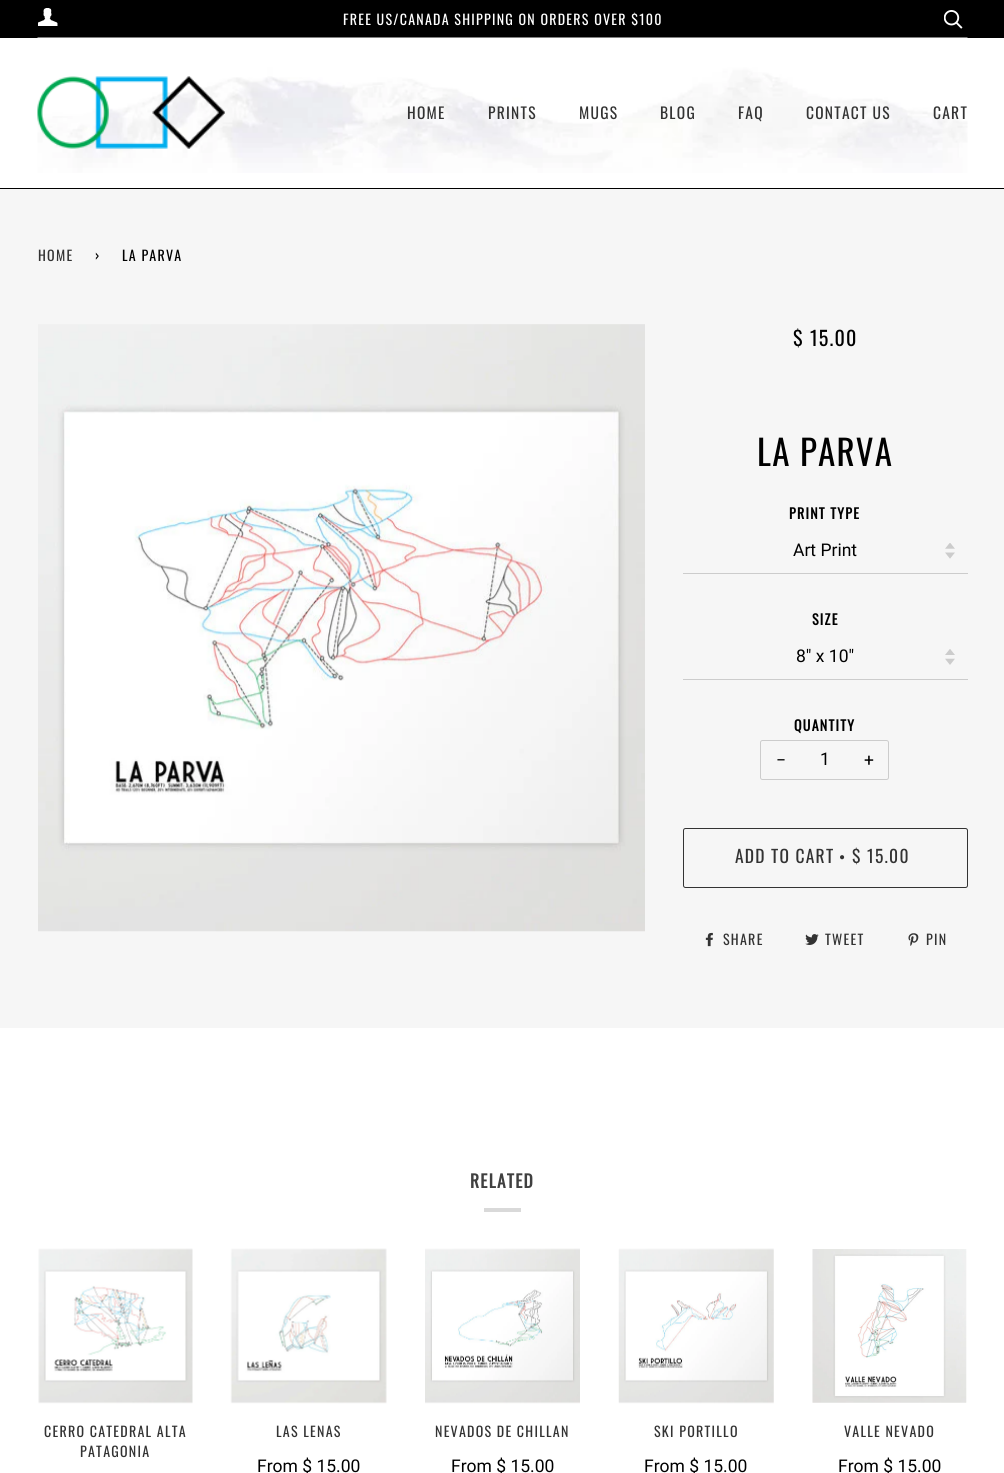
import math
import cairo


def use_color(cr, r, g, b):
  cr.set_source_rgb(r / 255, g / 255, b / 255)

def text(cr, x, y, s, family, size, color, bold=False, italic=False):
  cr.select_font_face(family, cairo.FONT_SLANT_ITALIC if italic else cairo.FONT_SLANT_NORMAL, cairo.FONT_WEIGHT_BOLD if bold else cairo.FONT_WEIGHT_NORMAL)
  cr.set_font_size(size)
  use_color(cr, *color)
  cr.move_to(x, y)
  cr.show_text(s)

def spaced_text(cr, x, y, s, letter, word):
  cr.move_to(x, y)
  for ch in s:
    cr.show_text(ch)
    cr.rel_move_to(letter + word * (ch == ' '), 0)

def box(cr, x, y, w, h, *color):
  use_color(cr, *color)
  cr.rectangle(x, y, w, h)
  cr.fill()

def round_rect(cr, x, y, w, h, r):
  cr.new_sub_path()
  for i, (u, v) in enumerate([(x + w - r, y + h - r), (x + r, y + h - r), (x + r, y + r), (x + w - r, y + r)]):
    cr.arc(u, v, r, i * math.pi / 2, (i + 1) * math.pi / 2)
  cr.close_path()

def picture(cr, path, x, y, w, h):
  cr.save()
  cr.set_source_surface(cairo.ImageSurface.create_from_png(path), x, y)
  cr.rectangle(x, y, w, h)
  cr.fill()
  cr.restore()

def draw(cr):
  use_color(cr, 255, 255, 255)
  cr.paint()
  box(cr, 0, 0, 1004, 38, 0, 0, 0)
  picture(cr, "img_01.png", 38, 8, 20, 18)
  picture(cr, "img_02.png", 944, 10, 19, 19)
  box(cr, 0, 188, 1004, 1, 0, 0, 0)
  picture(cr, "img_03.png", 37, 37, 931, 136)
  picture(cr, "img_04.png", 37, 76, 188, 73)
  box(cr, 0, 189, 1004, 839, 246, 246, 246)
  picture(cr, "img_05.png", 38, 324, 607, 608)
  picture(cr, "img_06.png", 945, 543, 10, 16)
  box(cr, 683, 573, 285, 1, 204, 204, 204)
  picture(cr, "img_07.png", 945, 649, 10, 16)
  box(cr, 683, 679, 285, 1, 204, 204, 204)
  round_rect(cr, 760.5, 740.5, 128, 39, 2)
  cr.set_line_width(1)
  cr.stroke()
  round_rect(cr, 683.5, 828.5, 284, 59, 2)
  use_color(cr, 51, 51, 51)
  cr.stroke()
  picture(cr, "img_08.png", 705, 932, 8, 15)
  picture(cr, "img_09.png", 805, 934, 14, 11)
  picture(cr, "img_10.png", 908, 933, 11, 13)
  box(cr, 484, 1208, 37, 4, 217, 217, 217)
  picture(cr, "img_11.png", 38, 1248, 155, 156)
  picture(cr, "img_12.png", 230, 1248, 157, 156)
  picture(cr, "img_13.png", 425, 1248, 155, 156)
  picture(cr, "img_14.png", 618, 1248, 156, 156)
  picture(cr, "img_15.png", 812, 1249, 155, 154)
  cr.select_font_face("Oswald")
  cr.set_font_size(14)
  use_color(cr, 255, 255, 255)
  spaced_text(cr, 343, 25, "FREE US/CANADA SHIPPING ON ORDERS OVER $100", 1.25, 0)
  cr.set_font_size(15.5)
  use_color(cr, 51, 51, 51)
  spaced_text(cr, 407, 119, "HOME", 1.25, 0)
  spaced_text(cr, 488, 119, "PRINTS", 1.25, 0)
  spaced_text(cr, 579, 119, "MUGS", 1.25, 0)
  spaced_text(cr, 660, 119, "BLOG", 1.25, 0)
  spaced_text(cr, 738, 119, "FAQ", 1.25, 0)
  spaced_text(cr, 806, 119, "CONTACT US", 1.25, 0)
  spaced_text(cr, 933, 119, "CART", 1.25, 0)
  cr.set_font_size(14)
  spaced_text(cr, 38, 261, "HOME", 1.25, 0)
  use_color(cr, 0, 0, 0)
  spaced_text(cr, 95, 261, "›", 1.25, 0)
  spaced_text(cr, 122, 261, "LA PARVA", 1.25, 0)
  cr.set_font_size(20)
  spaced_text(cr, 793, 346, "$ 15.00", 1.25, 0)
  cr.set_font_size(35)
  spaced_text(cr, 757, 466, "LA PARVA", 1.25, 0)
  cr.select_font_face("Oswald", cairo.FONT_SLANT_NORMAL, cairo.FONT_WEIGHT_BOLD)
  cr.set_font_size(14)
  spaced_text(cr, 789, 519, "PRINT TYPE", 1.25, 0)
  text(cr, 793, 556, "Art Print", "Roboto", 17.5, (0, 0, 0))
  cr.select_font_face("Oswald", cairo.FONT_SLANT_NORMAL, cairo.FONT_WEIGHT_BOLD)
  cr.set_font_size(14)
  spaced_text(cr, 812, 625, "SIZE", 1.25, 0)
  text(cr, 796, 662, "8\" x 10\"", "Roboto", 17.5, (0, 0, 0))
  cr.select_font_face("Oswald", cairo.FONT_SLANT_NORMAL, cairo.FONT_WEIGHT_BOLD)
  cr.set_font_size(14)
  spaced_text(cr, 794, 731, "QUANTITY", 1.25, 0)
  text(cr, 776, 766, "−", "Roboto", 17.5, (0, 0, 0))
  text(cr, 820, 765, "1", "Roboto", 17.5, (0, 0, 0))
  text(cr, 864, 766, "+", "Roboto", 17.5, (0, 0, 0))
  cr.select_font_face("Oswald")
  use_color(cr, 51, 51, 51)
  spaced_text(cr, 735, 863, "ADD TO CART", 1.25, 0)
  cr.select_font_face("Liberation Serif")
  spaced_text(cr, 839, 863, "•", 1.25, 0)
  cr.select_font_face("Oswald")
  spaced_text(cr, 852, 863, "$ 15.00", 1.25, 0)
  cr.set_font_size(14)
  spaced_text(cr, 723, 945, "SHARE", 1.25, 0)
  spaced_text(cr, 825, 945, "TWEET", 1.25, 0)
  spaced_text(cr, 926, 945, "PIN", 1.25, 0)
  cr.select_font_face("Oswald", cairo.FONT_SLANT_NORMAL, cairo.FONT_WEIGHT_BOLD)
  cr.set_font_size(17.5)
  use_color(cr, 64, 64, 64)
  spaced_text(cr, 470, 1188, "RELATED", 1.25, 0)
  cr.select_font_face("Oswald")
  cr.set_font_size(14)
  use_color(cr, 51, 51, 51)
  spaced_text(cr, 44, 1437, "CERRO CATEDRAL ALTA", 1.25, 0)
  spaced_text(cr, 80, 1457, "PATAGONIA", 1.25, 0)
  spaced_text(cr, 276, 1437, "LAS LENAS", 1.25, 0)
  text(cr, 257, 1472, "From $ 15.00", "Roboto", 17.5, (0, 0, 0))
  cr.select_font_face("Oswald")
  cr.set_font_size(14)
  use_color(cr, 51, 51, 51)
  spaced_text(cr, 435, 1437, "NEVADOS DE CHILLAN", 1.25, 0)
  text(cr, 451, 1472, "From $ 15.00", "Roboto", 17.5, (0, 0, 0))
  cr.select_font_face("Oswald")
  cr.set_font_size(14)
  use_color(cr, 51, 51, 51)
  spaced_text(cr, 654, 1437, "SKI PORTILLO", 1.25, 0)
  text(cr, 644, 1472, "From $ 15.00", "Roboto", 17.5, (0, 0, 0))
  cr.select_font_face("Oswald")
  cr.set_font_size(14)
  use_color(cr, 51, 51, 51)
  spaced_text(cr, 844, 1437, "VALLE NEVADO", 1.25, 0)
  text(cr, 838, 1472, "From $ 15.00", "Roboto", 17.5, (0, 0, 0))


surface = cairo.ImageSurface(cairo.FORMAT_RGB24, 1004, 1473)
cr = cairo.Context(surface)
options = cairo.FontOptions()
options.set_hint_metrics(cairo.HINT_METRICS_OFF)
options.set_hint_style(cairo.HINT_STYLE_NONE)
cr.set_font_options(options)
cr.set_miter_limit(4)
draw(cr)
surface.write_to_png("out.png")
